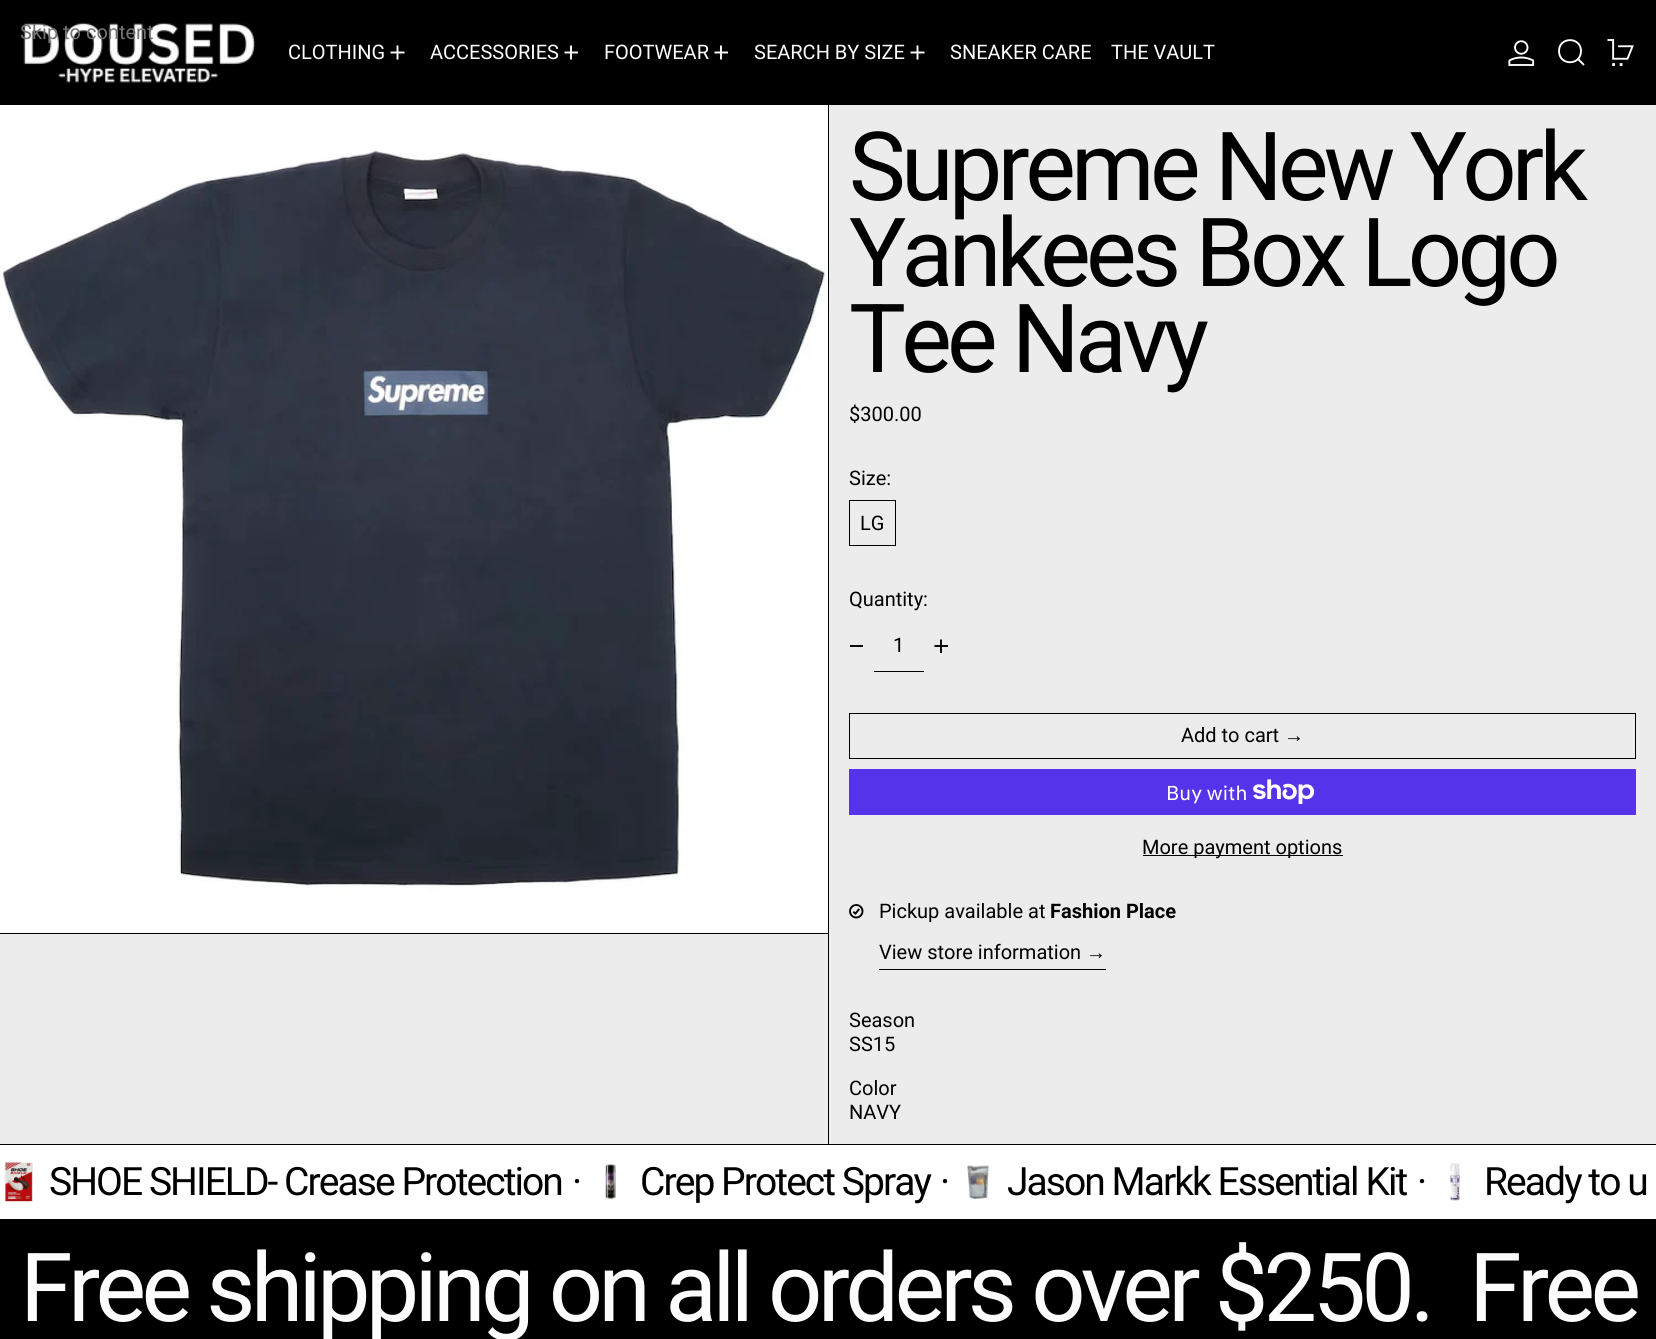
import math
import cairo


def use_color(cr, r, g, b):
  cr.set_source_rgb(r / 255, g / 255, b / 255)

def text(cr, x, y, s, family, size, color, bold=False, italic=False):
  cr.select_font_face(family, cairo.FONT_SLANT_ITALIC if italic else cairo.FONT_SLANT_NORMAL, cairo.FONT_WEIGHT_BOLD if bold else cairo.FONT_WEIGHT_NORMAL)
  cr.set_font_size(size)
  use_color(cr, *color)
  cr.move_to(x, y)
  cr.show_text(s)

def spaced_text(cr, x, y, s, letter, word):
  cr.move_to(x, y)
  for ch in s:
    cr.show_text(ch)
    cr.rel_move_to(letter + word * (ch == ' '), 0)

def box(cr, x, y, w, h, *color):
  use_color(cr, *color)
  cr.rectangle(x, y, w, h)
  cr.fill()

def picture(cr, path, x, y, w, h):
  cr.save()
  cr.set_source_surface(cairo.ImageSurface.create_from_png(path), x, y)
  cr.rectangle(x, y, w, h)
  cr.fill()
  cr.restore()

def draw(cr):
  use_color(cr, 0, 0, 0)
  cr.paint()
  picture(cr, "img_01.png", 23, 20, 233, 63)
  cr.new_path()
  cr.move_to(397.5, 45.5)
  cr.line_to(397.5, 59.5)
  cr.move_to(390.5, 52.5)
  cr.line_to(404.5, 52.5)
  use_color(cr, 255, 255, 255)
  cr.set_line_width(1.9)
  cr.stroke()
  cr.new_path()
  cr.move_to(571, 45.5)
  cr.line_to(571, 59.5)
  cr.move_to(564.5, 52.5)
  cr.line_to(578, 52.5)
  cr.stroke()
  cr.new_path()
  cr.move_to(721, 45.5)
  cr.line_to(721, 59.5)
  cr.move_to(714.5, 52.5)
  cr.line_to(728, 52.5)
  cr.stroke()
  cr.new_path()
  cr.move_to(917.5, 45.5)
  cr.line_to(917.5, 59.5)
  cr.move_to(910.5, 52.5)
  cr.line_to(924.5, 52.5)
  cr.stroke()
  picture(cr, "img_02.png", 1508, 40, 27, 26)
  cr.new_path()
  cr.move_to(1559, 51)
  cr.curve_to(1559, 66, 1581, 66, 1581, 51)
  cr.curve_to(1581, 36.5, 1559, 36.5, 1559, 51)
  cr.close_path()
  cr.move_to(1578, 59)
  cr.line_to(1584, 65)
  cr.stroke()
  picture(cr, "img_03.png", 1607, 39, 27, 27)
  box(cr, 0, 934, 828, 210, 236, 236, 236)
  picture(cr, "img_04.png", 0, 105, 828, 828)
  box(cr, 829, 105, 827, 1039, 236, 236, 236)
  cr.rectangle(849.5, 500.5, 46, 45)
  use_color(cr, 0, 0, 0)
  cr.set_line_width(1)
  cr.stroke()
  box(cr, 850, 645, 13, 2, 12, 12, 12)
  box(cr, 874, 671, 50, 1, 0, 0, 0)
  cr.new_path()
  cr.move_to(941, 639.5)
  cr.line_to(941, 653)
  cr.move_to(934.5, 646)
  cr.line_to(948, 646)
  cr.set_line_width(1.9)
  cr.stroke()
  cr.rectangle(849.5, 713.5, 786, 45)
  cr.set_line_width(1)
  cr.stroke()
  box(cr, 849, 769, 787, 46, 84, 51, 235)
  picture(cr, "img_05.png", 1253, 779, 62, 25)
  box(cr, 1143, 855, 200, 1, 0, 0, 0)
  picture(cr, "img_06.png", 849, 904, 15, 15)
  box(cr, 879, 969, 227, 1, 0, 0, 0)
  box(cr, 0, 1145, 1656, 74, 255, 255, 255)
  picture(cr, "img_07.png", 4, 1162, 29, 40)
  picture(cr, "img_08.png", 605, 1164, 11, 36)
  picture(cr, "img_09.png", 967, 1165, 22, 35)
  picture(cr, "img_10.png", 1450, 1163, 10, 38)
  text(cr, 20, 39, "Skip to content", "Roboto", 20, (116, 116, 116))
  text(cr, 288, 59, "CLOTHING", "Roboto", 20, (252, 252, 252))
  text(cr, 430, 59, "ACCESSORIES", "Roboto", 20, (252, 252, 252))
  text(cr, 604, 59, "FOOTWEAR", "Roboto", 20, (252, 252, 252))
  text(cr, 754, 59, "SEARCH BY SIZE", "Roboto", 20, (252, 252, 252))
  text(cr, 950, 59, "SNEAKER CARE", "Roboto", 20, (252, 252, 252))
  text(cr, 1111, 59, "THE VAULT", "Roboto", 20, (252, 252, 252))
  cr.set_font_size(95.4)
  use_color(cr, 0, 0, 0)
  spaced_text(cr, 849, 200, "Supreme New York", -4.75, 0)
  spaced_text(cr, 849, 286, "Yankees Box Logo", -4.75, 0)
  spaced_text(cr, 849, 372, "Tee Navy", -4.75, 0)
  text(cr, 849, 421, "$300.00", "Roboto", 20, (0, 0, 0))
  text(cr, 849, 485, "Size:", "Roboto", 20, (0, 0, 0))
  text(cr, 860, 530, "LG", "Roboto", 20, (0, 0, 0))
  text(cr, 849, 606, "Quantity:", "Roboto", 20, (0, 0, 0))
  text(cr, 893, 652, "1", "Roboto", 20, (0, 0, 0))
  text(cr, 1181, 742, "Add to cart", "Roboto", 20, (0, 0, 0))
  text(cr, 1284, 742, "→", "Liberation Sans", 20, (0, 0, 0))
  text(cr, 1166, 800, "Buy with", "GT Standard", 20, (252, 252, 252))
  text(cr, 1142, 854, "More payment options", "Roboto", 20, (0, 0, 0))
  text(cr, 879, 918, "Pickup available at", "Roboto", 20, (0, 0, 0))
  text(cr, 1050, 918, "Fashion Place", "Roboto", 20, (0, 0, 0), bold=True)
  text(cr, 879, 959, "View store information", "Roboto", 20, (0, 0, 0))
  text(cr, 1086, 959, "→", "Liberation Sans", 20, (0, 0, 0))
  text(cr, 849, 1027, "Season", "Roboto", 20, (0, 0, 0))
  text(cr, 849, 1051, "SS15", "Roboto", 20, (0, 0, 0))
  text(cr, 849, 1095, "Color", "Roboto", 20, (0, 0, 0))
  text(cr, 849, 1119, "NAVY", "Roboto", 20, (0, 0, 0))
  cr.set_font_size(39)
  spaced_text(cr, 49, 1195, "SHOE SHIELD- Crease Protection", -1.95, 0)
  spaced_text(cr, 572, 1195, "·", -1.95, 0)
  spaced_text(cr, 640, 1195, "Crep Protect Spray", -1.95, 0)
  spaced_text(cr, 940, 1195, "·", -1.95, 0)
  spaced_text(cr, 1007, 1195, "Jason Markk Essential Kit", -1.95, 0)
  spaced_text(cr, 1417, 1195, "·", -1.95, 0)
  spaced_text(cr, 1484, 1195, "Ready to u", -1.95, 0)
  cr.set_font_size(95.4)
  use_color(cr, 252, 252, 252)
  spaced_text(cr, 20, 1321, "Free shipping on all orders over $250.", -4.75, 0)
  spaced_text(cr, 1469, 1321, "Free", -4.75, 0)


surface = cairo.ImageSurface(cairo.FORMAT_RGB24, 1656, 1339)
cr = cairo.Context(surface)
options = cairo.FontOptions()
options.set_hint_metrics(cairo.HINT_METRICS_OFF)
options.set_hint_style(cairo.HINT_STYLE_NONE)
cr.set_font_options(options)
cr.set_miter_limit(4)
draw(cr)
surface.write_to_png("out.png")
